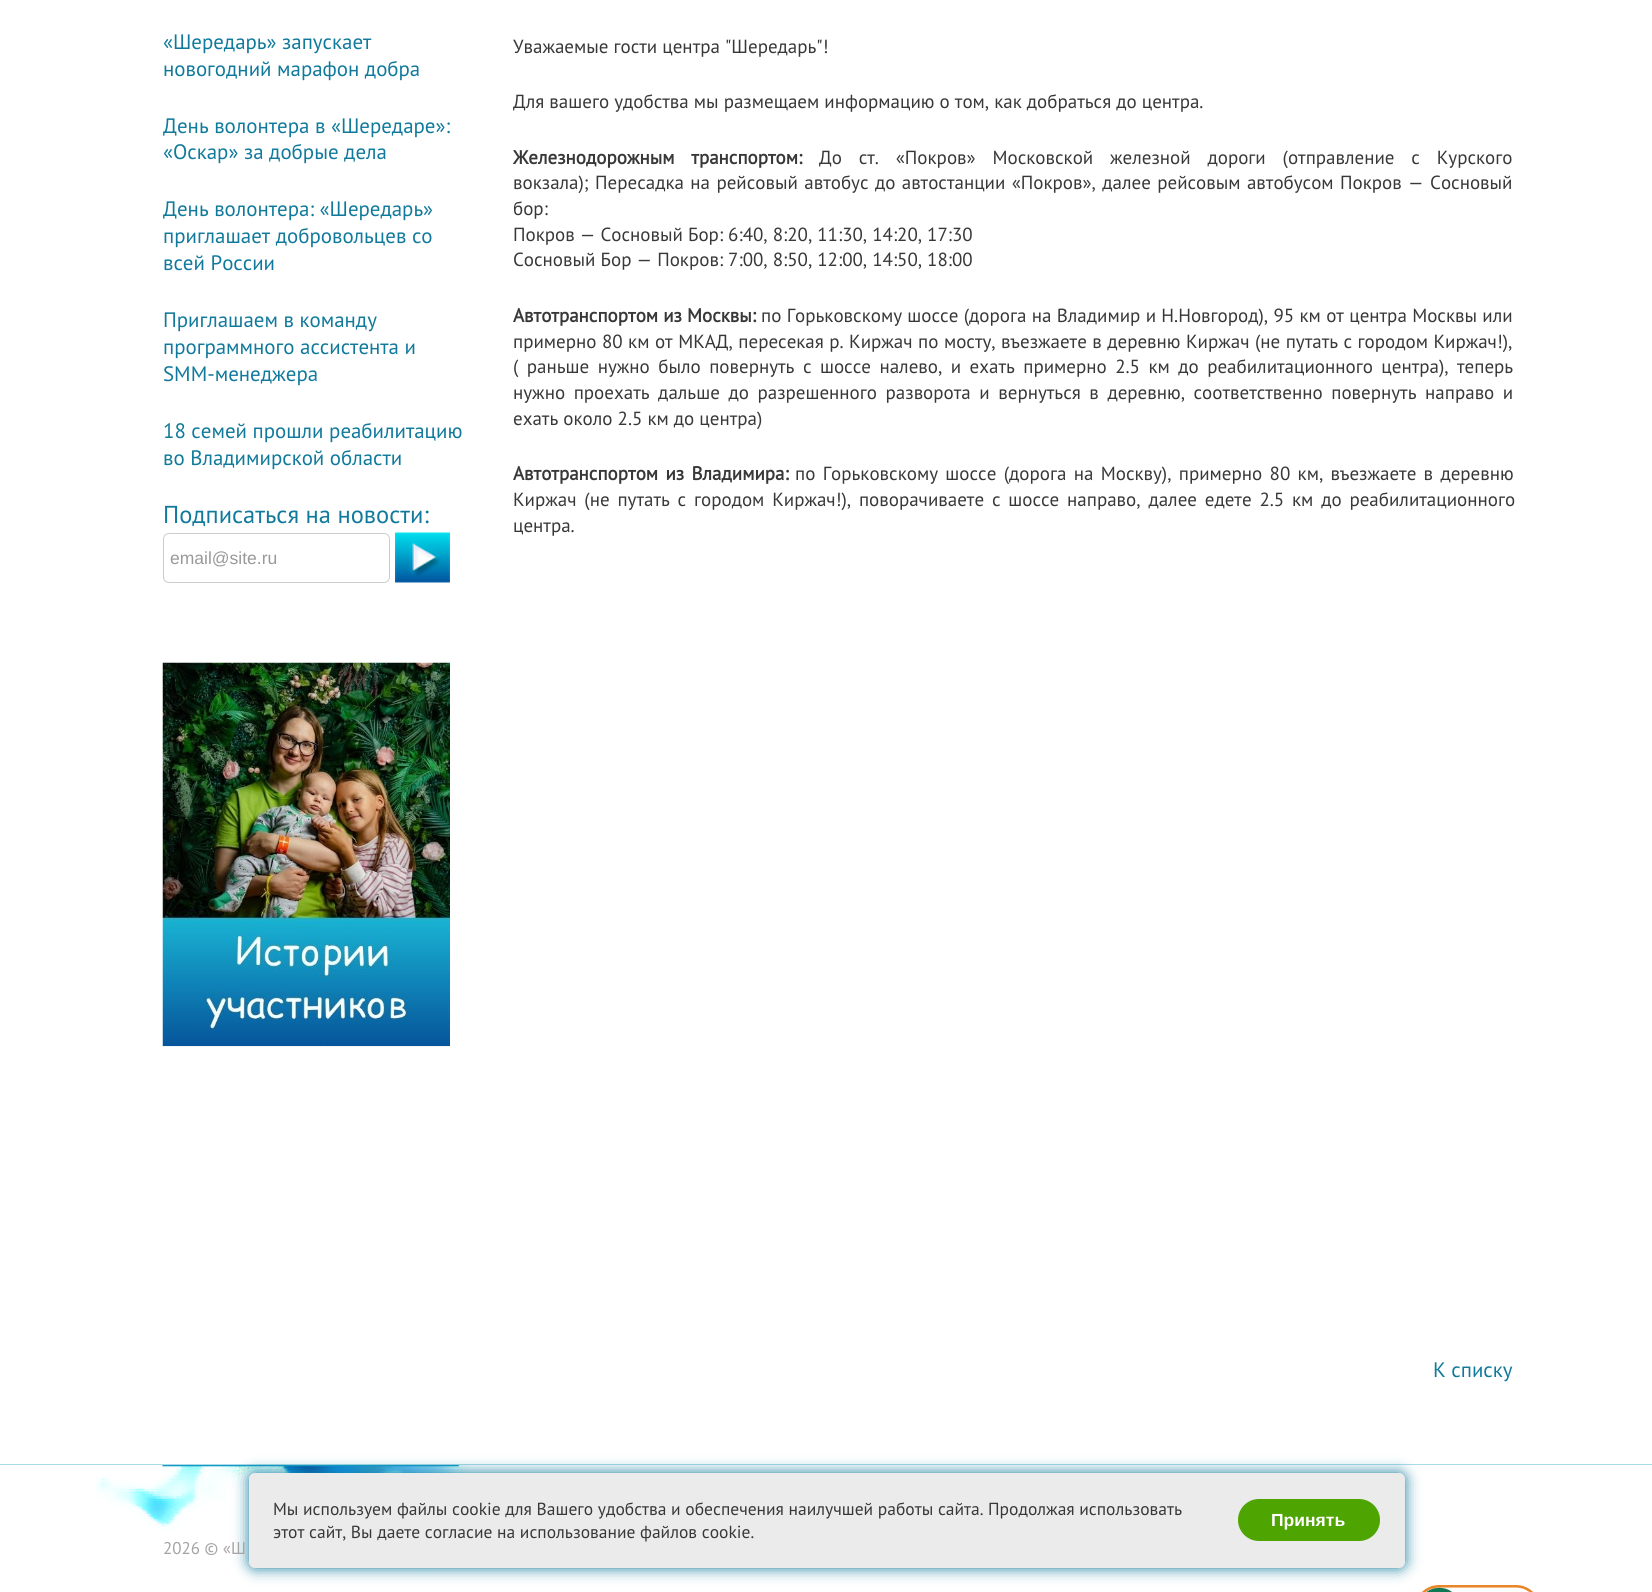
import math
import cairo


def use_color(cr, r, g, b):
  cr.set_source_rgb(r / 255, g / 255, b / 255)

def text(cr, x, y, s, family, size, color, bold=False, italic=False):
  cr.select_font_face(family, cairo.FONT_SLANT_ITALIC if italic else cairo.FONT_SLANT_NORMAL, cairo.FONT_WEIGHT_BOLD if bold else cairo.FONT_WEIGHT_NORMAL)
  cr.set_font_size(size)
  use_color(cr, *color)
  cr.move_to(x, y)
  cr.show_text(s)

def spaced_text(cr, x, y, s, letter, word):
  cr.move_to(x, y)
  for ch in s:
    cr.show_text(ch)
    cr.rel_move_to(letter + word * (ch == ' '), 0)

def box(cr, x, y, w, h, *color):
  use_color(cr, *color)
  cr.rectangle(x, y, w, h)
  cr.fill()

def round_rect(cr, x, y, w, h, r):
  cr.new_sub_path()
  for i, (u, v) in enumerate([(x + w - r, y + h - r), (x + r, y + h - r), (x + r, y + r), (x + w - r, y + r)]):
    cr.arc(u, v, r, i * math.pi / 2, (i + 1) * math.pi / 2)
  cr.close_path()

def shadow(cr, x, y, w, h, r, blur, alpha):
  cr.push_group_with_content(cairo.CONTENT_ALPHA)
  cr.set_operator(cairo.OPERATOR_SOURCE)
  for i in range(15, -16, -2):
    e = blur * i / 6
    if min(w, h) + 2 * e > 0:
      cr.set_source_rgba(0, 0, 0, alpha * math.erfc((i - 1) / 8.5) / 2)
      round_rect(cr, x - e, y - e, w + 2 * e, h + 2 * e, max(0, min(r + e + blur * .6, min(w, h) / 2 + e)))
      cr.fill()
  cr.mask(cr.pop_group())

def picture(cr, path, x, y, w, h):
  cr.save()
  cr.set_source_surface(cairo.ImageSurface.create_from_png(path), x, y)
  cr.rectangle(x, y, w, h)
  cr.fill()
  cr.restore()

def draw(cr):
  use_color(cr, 255, 255, 255)
  cr.paint()
  round_rect(cr, 163.5, 533.5, 226, 49, 5.5)
  use_color(cr, 204, 204, 204)
  cr.set_line_width(1)
  cr.stroke()
  picture(cr, "img_01.png", 395, 532, 55, 51)
  picture(cr, "img_02.png", 162, 662, 288, 385)
  box(cr, 0, 1464, 1652, 1, 170, 219, 234)
  picture(cr, "img_03.png", 96, 1465, 392, 104)
  picture(cr, "img_04.png", 1422, 1585, 111, 7)
  use_color(cr, 17, 122, 156)
  shadow(cr, 249, 1473, 1156, 95, 6, 7.5, 1)
  use_color(cr, 235, 235, 235)
  round_rect(cr, 249, 1473, 1156, 95, 6)
  cr.fill()
  use_color(cr, 78, 164, 0)
  round_rect(cr, 1239.5, 1500.5, 139, 39, 19.5)
  cr.fill_preserve()
  cr.set_line_width(3)
  cr.stroke()
  text(cr, 163, 49, "«Шередарь» запускает", "PT Sans", 20.9, (17, 122, 156))
  text(cr, 163, 76, "новогодний марафон добра", "PT Sans", 20.9, (17, 122, 156))
  text(cr, 163, 133, "День волонтера в «Шередаре»:", "PT Sans", 20.9, (17, 122, 156))
  text(cr, 163, 159, "«Оскар» за добрые дела", "PT Sans", 20.9, (17, 122, 156))
  text(cr, 163, 216, "День волонтера: «Шередарь»", "PT Sans", 20.9, (17, 122, 156))
  text(cr, 163, 243, "приглашает добровольцев со", "PT Sans", 20.9, (17, 122, 156))
  text(cr, 163, 270, "всей России", "PT Sans", 20.9, (17, 122, 156))
  text(cr, 163, 327, "Приглашаем в команду", "PT Sans", 20.9, (17, 122, 156))
  text(cr, 163, 354, "программного ассистента и", "PT Sans", 20.9, (17, 122, 156))
  text(cr, 163, 381, "SMM-менеджера", "PT Sans", 20.9, (17, 122, 156))
  text(cr, 163, 438, "18 семей прошли реабилитацию", "PT Sans", 20.9, (17, 122, 156))
  text(cr, 163, 465, "во Владимирской области", "PT Sans", 20.9, (17, 122, 156))
  text(cr, 163, 523, "Подписаться на новости:", "PT Sans", 24.5, (17, 122, 156))
  text(cr, 170, 564, "email@site.ru", "Liberation Sans", 17.5, (153, 153, 153))
  text(cr, 513, 53, "Уважаемые гости центра \"Шередарь\"!", "PT Sans", 19, (56, 56, 56))
  text(cr, 513, 108, "Для вашего удобства мы размещаем информацию о том, как добраться до центра.", "PT Sans", 19, (56, 56, 56))
  cr.select_font_face("PT Sans", cairo.FONT_SLANT_NORMAL, cairo.FONT_WEIGHT_BOLD)
  spaced_text(cr, 513, 164, "Железнодорожным транспортом:", 0, 11.75)
  cr.select_font_face("PT Sans")
  spaced_text(cr, 819, 164, "До ст. «Покров» Московской железной дороги (отправление с Курского", 0, 11.75)
  spaced_text(cr, 513, 189, "вокзала); Пересадка на рейсовый автобус до автостанции «Покров», далее рейсовым автобусом Покров — Сосновый", 0, 1.3)
  text(cr, 513, 215, "бор:", "PT Sans", 19, (56, 56, 56))
  text(cr, 513, 241, "Покров — Сосновый Бор: 6:40, 8:20, 11:30, 14:20, 17:30", "PT Sans", 19, (56, 56, 56))
  text(cr, 513, 266, "Сосновый Бор — Покров: 7:00, 8:50, 12:00, 14:50, 18:00", "PT Sans", 19, (56, 56, 56))
  text(cr, 513, 322, "Автотранспортом из Москвы:", "PT Sans", 19, (56, 56, 56), bold=True)
  cr.select_font_face("PT Sans")
  spaced_text(cr, 761, 322, "по Горьковскому шоссе (дорога на Владимир и Н.Новгород), 95 км от центра Москвы или", 0, 0.25)
  spaced_text(cr, 513, 348, "примерно 80 км от МКАД, пересекая р. Киржач по мосту, въезжаете в деревню Киржач (не путать с городом Киржач!),", 0, 0.4)
  spaced_text(cr, 513, 373, "( раньше нужно было повернуть с шоссе налево, и ехать примерно 2.5 км до реабилитационного центра), теперь", 0, 3.4)
  spaced_text(cr, 513, 399, "нужно проехать дальше до разрешенного разворота и вернуться в деревню, соответственно повернуть направо и", 0, 3.5)
  text(cr, 513, 425, "ехать около 2.5 км до центра)", "PT Sans", 19, (56, 56, 56))
  cr.select_font_face("PT Sans", cairo.FONT_SLANT_NORMAL, cairo.FONT_WEIGHT_BOLD)
  spaced_text(cr, 513, 480, "Автотранспортом из Владимира:", 0, 2.25)
  cr.select_font_face("PT Sans")
  spaced_text(cr, 795, 480, "по Горьковскому шоссе (дорога на Москву), примерно 80 км, въезжаете в деревню", 0, 2.25)
  spaced_text(cr, 513, 506, "Киржач (не путать с городом Киржач!), поворачиваете с шоссе направо, далее едете 2.5 км до реабилитационного", 0, 2.75)
  text(cr, 513, 532, "центра.", "PT Sans", 19, (56, 56, 56))
  text(cr, 1433, 1377, "К списку", "PT Sans", 20.9, (17, 122, 156))
  text(cr, 163, 1554, "2026 © «Ш", "PT Sans", 17, (165, 163, 163))
  text(cr, 273, 1515, "Мы используем файлы cookie для Вашего удобства и обеспечения наилучшей работы сайта. Продолжая использовать", "PT Sans", 17.5, (56, 56, 56))
  text(cr, 273, 1538, "этот сайт, Вы даете согласие на использование файлов cookie.", "PT Sans", 17.5, (56, 56, 56))
  text(cr, 1271, 1526, "Принять", "Liberation Sans", 17.5, (255, 255, 255), bold=True)


surface = cairo.ImageSurface(cairo.FORMAT_RGB24, 1652, 1592)
cr = cairo.Context(surface)
options = cairo.FontOptions()
options.set_hint_metrics(cairo.HINT_METRICS_OFF)
options.set_hint_style(cairo.HINT_STYLE_NONE)
cr.set_font_options(options)
cr.set_miter_limit(4)
draw(cr)
surface.write_to_png("out.png")
